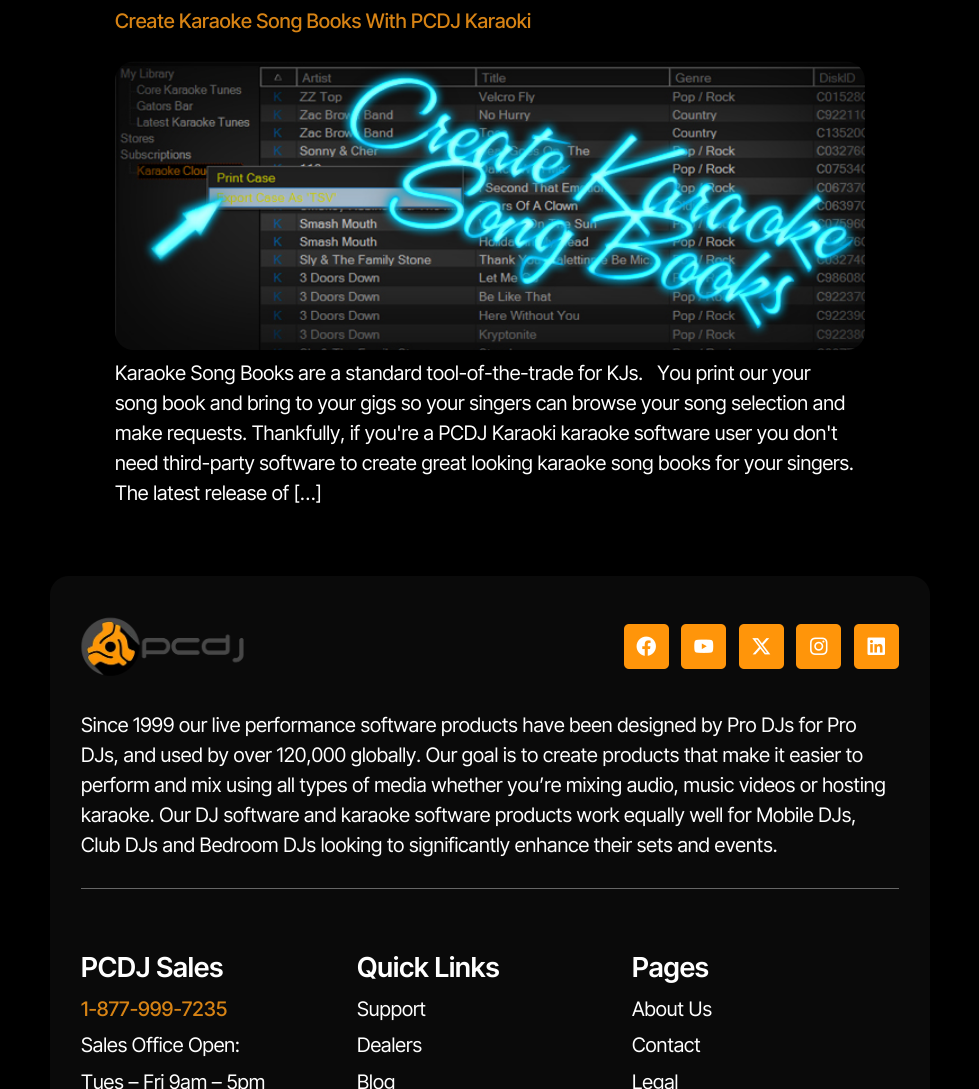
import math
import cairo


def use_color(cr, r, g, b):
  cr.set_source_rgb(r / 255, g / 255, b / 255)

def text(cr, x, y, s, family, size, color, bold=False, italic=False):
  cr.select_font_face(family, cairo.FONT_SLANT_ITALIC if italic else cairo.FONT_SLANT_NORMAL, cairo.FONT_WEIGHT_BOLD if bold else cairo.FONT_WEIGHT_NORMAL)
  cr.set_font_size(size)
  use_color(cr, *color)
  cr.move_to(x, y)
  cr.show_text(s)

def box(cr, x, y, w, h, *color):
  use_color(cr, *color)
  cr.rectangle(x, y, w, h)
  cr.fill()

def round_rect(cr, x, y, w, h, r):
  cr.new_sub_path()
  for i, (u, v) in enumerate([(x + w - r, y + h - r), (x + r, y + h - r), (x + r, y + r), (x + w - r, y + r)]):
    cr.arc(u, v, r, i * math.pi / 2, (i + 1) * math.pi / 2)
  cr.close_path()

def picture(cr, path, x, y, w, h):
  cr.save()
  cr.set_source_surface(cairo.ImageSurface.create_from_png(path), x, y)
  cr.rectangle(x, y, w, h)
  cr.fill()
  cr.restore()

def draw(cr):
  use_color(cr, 0, 0, 0)
  cr.paint()
  picture(cr, "img_01.png", 115, 61, 750, 290)
  use_color(cr, 10, 10, 10)
  round_rect(cr, 50, 576, 880, 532, 19)
  cr.fill()
  picture(cr, "img_02.png", 81, 617, 163, 59)
  use_color(cr, 255, 149, 10)
  round_rect(cr, 624, 624, 45, 45, 5)
  cr.fill()
  picture(cr, "img_03.png", 636, 636, 20, 20)
  round_rect(cr, 681, 624, 45, 45, 5)
  cr.fill()
  picture(cr, "img_04.png", 694, 639, 20, 14)
  round_rect(cr, 739, 624, 45, 45, 5)
  cr.fill()
  picture(cr, "img_05.png", 752, 638, 19, 17)
  round_rect(cr, 796, 624, 45, 45, 5)
  cr.fill()
  picture(cr, "img_06.png", 810, 637, 18, 18)
  round_rect(cr, 854, 624, 45, 45, 5)
  cr.fill()
  picture(cr, "img_07.png", 867, 637, 18, 18)
  box(cr, 81, 888, 818, 1, 102, 102, 102)
  text(cr, 115, 28, "Create Karaoke Song Books With PCDJ Karaoki", "Inter Tight Medium", 20, (215, 131, 20))
  text(cr, 115, 380, "Karaoke Song Books are a standard tool-of-the-trade for KJs.   You print our your", "Inter Tight", 20, (255, 255, 255))
  text(cr, 115, 410, "song book and bring to your gigs so your singers can browse your song selection and", "Inter Tight", 20, (255, 255, 255))
  text(cr, 115, 440, "make requests. Thankfully, if you're a PCDJ Karaoki karaoke software user you don't", "Inter Tight", 20, (255, 255, 255))
  text(cr, 115, 470, "need third-party software to create great looking karaoke song books for your singers.", "Inter Tight", 20, (255, 255, 255))
  text(cr, 115, 500, "The latest release of […]", "Inter Tight", 20, (255, 255, 255))
  text(cr, 81, 732, "Since 1999 our live performance software products have been designed by Pro DJs for Pro", "Inter Tight", 20, (255, 255, 255))
  text(cr, 81, 762, "DJs, and used by over 120,000 globally. Our goal is to create products that make it easier to", "Inter Tight", 20, (255, 255, 255))
  text(cr, 81, 792, "perform and mix using all types of media whether you’re mixing audio, music videos or hosting", "Inter Tight", 20, (255, 255, 255))
  text(cr, 81, 822, "karaoke. Our DJ software and karaoke software products work equally well for Mobile DJs,", "Inter Tight", 20, (255, 255, 255))
  text(cr, 81, 852, "Club DJs and Bedroom DJs looking to significantly enhance their sets and events.", "Inter Tight", 20, (255, 255, 255))
  text(cr, 81, 977, "PCDJ Sales", "Inter Tight SemiBold", 27.5, (255, 255, 255))
  text(cr, 81, 1016, "1-877-999-7235", "Inter Tight Medium", 20, (215, 131, 20))
  text(cr, 81, 1052, "Sales Office Open:", "Inter Tight", 20, (255, 255, 255))
  text(cr, 81, 1089, "Tues – Fri 9am – 5pm", "Inter Tight", 20, (255, 255, 255))
  text(cr, 357, 977, "Quick Links", "Inter Tight SemiBold", 27.5, (255, 255, 255))
  text(cr, 357, 1016, "Support", "Inter Tight", 20, (255, 255, 255))
  text(cr, 357, 1052, "Dealers", "Inter Tight", 20, (255, 255, 255))
  text(cr, 357, 1089, "Blog", "Inter Tight", 20, (255, 255, 255))
  text(cr, 632, 977, "Pages", "Inter Tight SemiBold", 27.5, (255, 255, 255))
  text(cr, 632, 1016, "About Us", "Inter Tight", 20, (255, 255, 255))
  text(cr, 632, 1052, "Contact", "Inter Tight", 20, (255, 255, 255))
  text(cr, 632, 1089, "Legal", "Inter Tight", 20, (255, 255, 255))


surface = cairo.ImageSurface(cairo.FORMAT_RGB24, 979, 1089)
cr = cairo.Context(surface)
options = cairo.FontOptions()
options.set_hint_metrics(cairo.HINT_METRICS_OFF)
options.set_hint_style(cairo.HINT_STYLE_NONE)
cr.set_font_options(options)
cr.set_miter_limit(4)
draw(cr)
surface.write_to_png("out.png")
